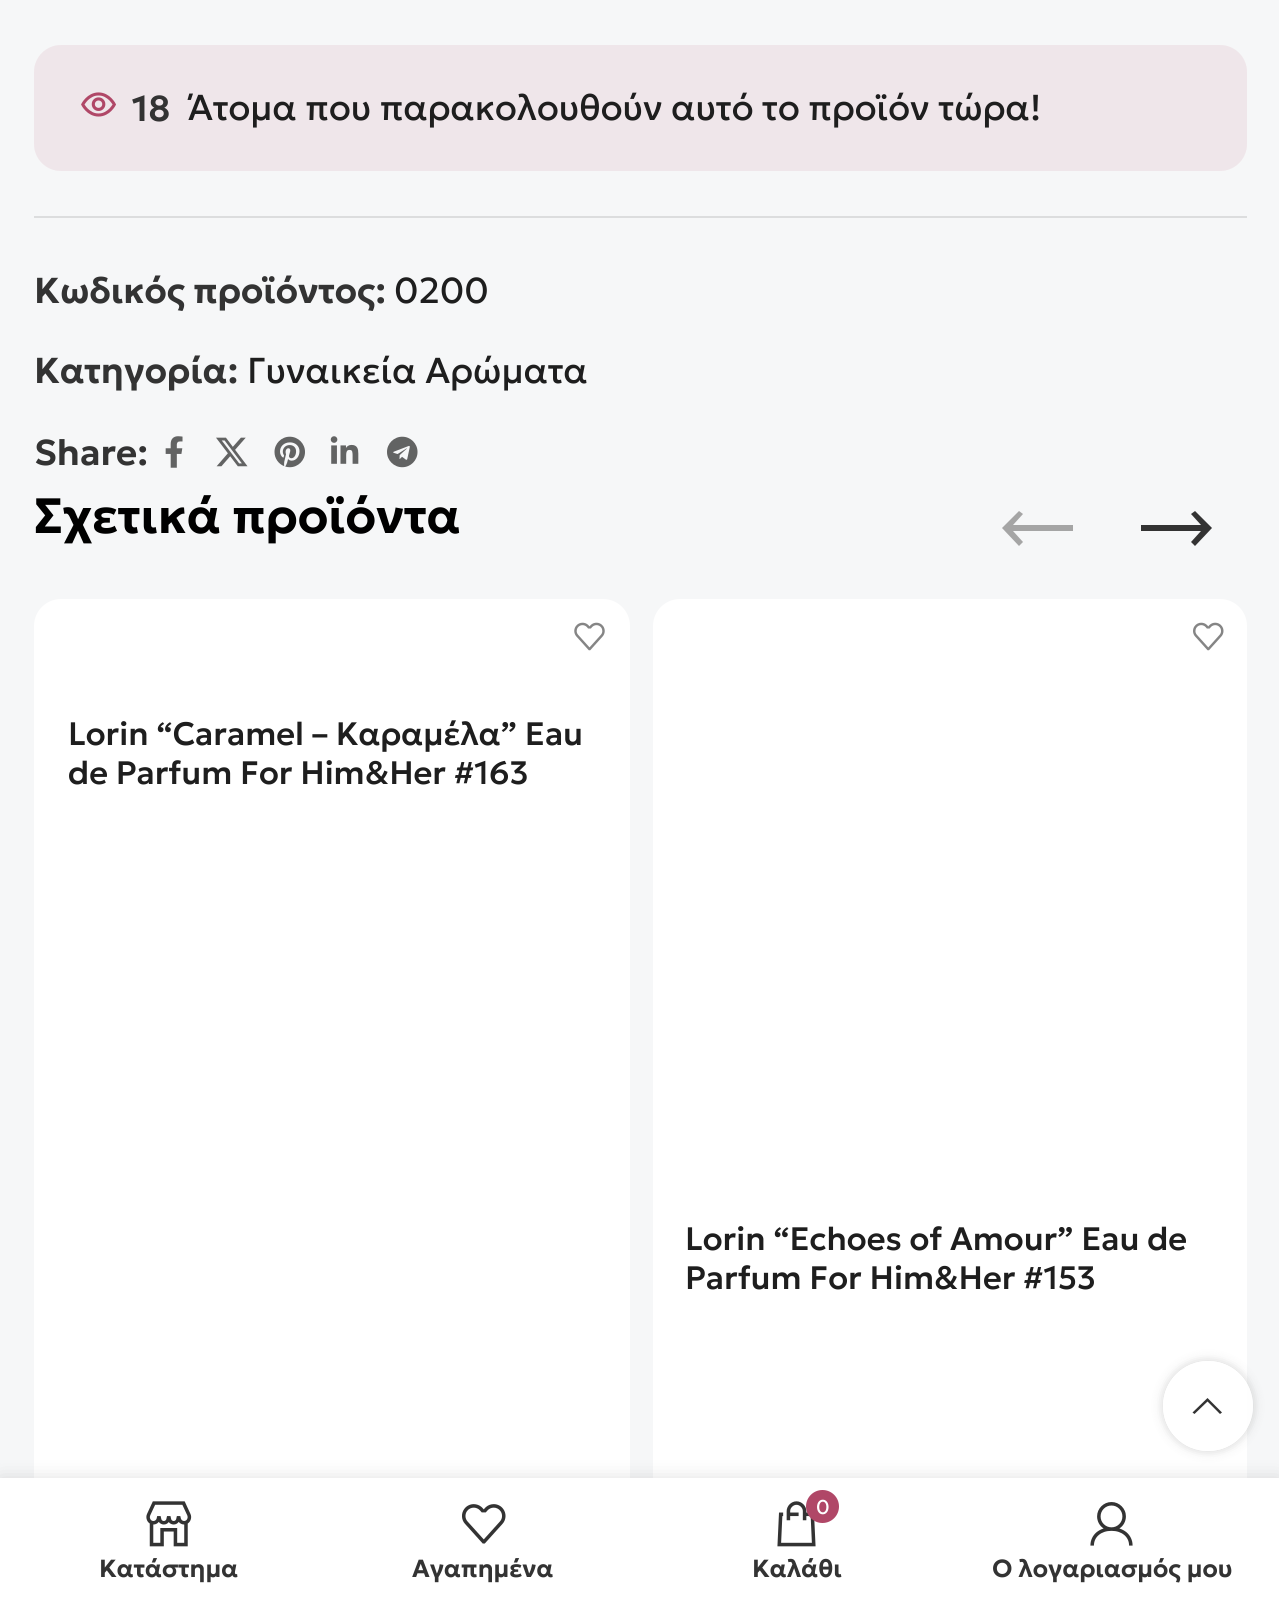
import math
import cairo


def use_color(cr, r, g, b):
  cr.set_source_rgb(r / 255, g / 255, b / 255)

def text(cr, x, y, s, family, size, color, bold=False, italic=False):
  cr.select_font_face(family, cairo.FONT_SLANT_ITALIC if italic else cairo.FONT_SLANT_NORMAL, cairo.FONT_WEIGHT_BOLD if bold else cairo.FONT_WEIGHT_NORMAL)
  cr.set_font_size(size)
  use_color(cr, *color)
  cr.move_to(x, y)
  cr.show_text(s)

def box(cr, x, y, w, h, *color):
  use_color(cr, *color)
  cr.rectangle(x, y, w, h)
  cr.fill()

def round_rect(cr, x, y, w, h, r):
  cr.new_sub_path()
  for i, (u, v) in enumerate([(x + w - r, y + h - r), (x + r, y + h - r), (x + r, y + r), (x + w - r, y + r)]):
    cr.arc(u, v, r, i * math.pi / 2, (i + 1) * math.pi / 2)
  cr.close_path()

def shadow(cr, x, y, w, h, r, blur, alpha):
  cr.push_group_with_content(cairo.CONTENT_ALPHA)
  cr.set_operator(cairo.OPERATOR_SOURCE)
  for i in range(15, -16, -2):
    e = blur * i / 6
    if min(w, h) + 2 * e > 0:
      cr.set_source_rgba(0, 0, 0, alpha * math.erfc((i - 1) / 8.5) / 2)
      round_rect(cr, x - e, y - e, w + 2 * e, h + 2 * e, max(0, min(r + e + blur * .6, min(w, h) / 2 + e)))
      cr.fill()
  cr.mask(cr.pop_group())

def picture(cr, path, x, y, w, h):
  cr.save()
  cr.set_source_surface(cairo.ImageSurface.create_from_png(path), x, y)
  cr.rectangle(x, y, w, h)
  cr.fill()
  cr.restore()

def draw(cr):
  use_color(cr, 246, 247, 248)
  cr.paint()
  picture(cr, "img_01.png", 81, 92, 35, 25)
  cr.set_source_rgba(0.69, 0.278, 0.404, 0.1)
  round_rect(cr, 34, 45, 1213, 126, 27)
  cr.fill()
  box(cr, 34, 216, 1213, 2, 220, 221, 222)
  picture(cr, "img_02.png", 165, 436, 18, 32)
  picture(cr, "img_03.png", 216, 437, 32, 30)
  picture(cr, "img_04.png", 274, 436, 31, 32)
  picture(cr, "img_05.png", 330, 436, 29, 28)
  picture(cr, "img_06.png", 387, 436, 31, 32)
  use_color(cr, 165, 165, 165)
  cr.new_path()
  cr.move_to(1023, 542)
  cr.line_to(1013, 531)
  cr.line_to(1073, 531)
  cr.line_to(1073, 525)
  cr.line_to(1013, 525)
  cr.line_to(1023, 514)
  cr.line_to(1019, 511)
  cr.line_to(1002, 528)
  cr.line_to(1019, 546)
  cr.close_path()
  cr.fill()
  use_color(cr, 51, 51, 51)
  cr.new_path()
  cr.move_to(1212, 528)
  cr.line_to(1195, 511)
  cr.line_to(1191, 514)
  cr.line_to(1201, 525)
  cr.line_to(1141, 525)
  cr.line_to(1141, 531)
  cr.line_to(1201, 531)
  cr.line_to(1191, 542)
  cr.line_to(1195, 546)
  cr.close_path()
  cr.fill()
  use_color(cr, 255, 255, 255)
  round_rect(cr, 34, 599, 596, 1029, 27)
  cr.fill()
  picture(cr, "img_07.png", 574, 622, 31, 29)
  round_rect(cr, 653, 599, 594, 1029, 27)
  cr.fill()
  picture(cr, "img_08.png", 1193, 622, 31, 29)
  cr.save()
  cr.set_fill_rule(cairo.FILL_RULE_EVEN_ODD)
  cr.new_path()
  cr.move_to(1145, 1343)
  cr.line_to(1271, 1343)
  cr.line_to(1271, 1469)
  cr.line_to(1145, 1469)
  cr.close_path()
  cr.move_to(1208, 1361)
  cr.curve_to(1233, 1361, 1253, 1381, 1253, 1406)
  cr.curve_to(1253, 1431, 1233, 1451, 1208, 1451)
  cr.curve_to(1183, 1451, 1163, 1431, 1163, 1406)
  cr.curve_to(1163, 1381, 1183, 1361, 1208, 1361)
  cr.close_path()
  cr.clip()
  use_color(cr, 0, 0, 0)
  shadow(cr, 1163, 1361, 90, 90, 45, 5.5, 0.17)
  cr.restore()
  cr.set_source_rgba(1, 1, 1, 0.9)
  cr.arc(1208, 1406, 45, 0, 2 * math.pi)
  cr.fill()
  use_color(cr, 51, 51, 51)
  cr.new_path()
  cr.move_to(1220, 1414)
  cr.line_to(1222, 1412.5)
  cr.line_to(1207.5, 1398)
  cr.line_to(1192.5, 1412.5)
  cr.line_to(1194.5, 1414)
  cr.line_to(1207.5, 1401.5)
  cr.close_path()
  cr.fill()
  use_color(cr, 0, 0, 0)
  shadow(cr, 0, 1478, 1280, 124, 0, 10, 0.12)
  box(cr, 0, 1478, 1279, 123, 255, 255, 255)
  picture(cr, "img_09.png", 146, 1501, 46, 46)
  picture(cr, "img_10.png", 462, 1504, 44, 40)
  picture(cr, "img_11.png", 777, 1501, 39, 46)
  use_color(cr, 176, 71, 103)
  cr.arc(822.5, 1506.5, 16.5, 0, 2 * math.pi)
  cr.fill()
  picture(cr, "img_12.png", 1090, 1502, 43, 44)
  text(cr, 132, 121, "18", "Geologica SemiBold", 36, (51, 51, 51))
  text(cr, 188, 120, "Άτομα που παρακολουθούν αυτό το προϊόν τώρα!", "Geologica", 36, (30, 30, 30))
  text(cr, 34, 303, "Κωδικός προϊόντος:", "Geologica SemiBold", 36, (51, 51, 51))
  text(cr, 394, 303, "0200", "Geologica", 36, (30, 30, 30))
  text(cr, 34, 383, "Κατηγορία:", "Geologica SemiBold", 36, (51, 51, 51))
  text(cr, 247, 383, "Γυναικεία Αρώματα", "Geologica", 36, (30, 30, 30))
  text(cr, 34, 465, "Share:", "Geologica SemiBold", 36, (51, 51, 51))
  text(cr, 34, 533, "Σχετικά προϊόντα", "Geologica SemiBold", 49.5, (0, 0, 0))
  text(cr, 68, 745, "Lorin “Caramel – Καραμέλα” Eau", "Geologica Medium", 32.4, (30, 30, 30))
  text(cr, 68, 784, "de Parfum For Him&Her #163", "Geologica Medium", 32.4, (30, 30, 30))
  text(cr, 685, 1250, "Lorin “Echoes of Amour” Eau de", "Geologica Medium", 32.4, (30, 30, 30))
  text(cr, 685, 1289, "Parfum For Him&Her #153", "Geologica Medium", 32.4, (30, 30, 30))
  text(cr, 99, 1577, "Κατάστημα", "Geologica SemiBold", 24.75, (51, 51, 51))
  text(cr, 412, 1577, "Αγαπημένα", "Geologica SemiBold", 24.75, (51, 51, 51))
  text(cr, 816, 1514, "0", "Geologica", 20, (255, 255, 255))
  text(cr, 752, 1577, "Καλάθι", "Geologica SemiBold", 24.75, (51, 51, 51))
  text(cr, 992, 1577, "Ο λογαριασμός μου", "Geologica SemiBold", 24.75, (51, 51, 51))


surface = cairo.ImageSurface(cairo.FORMAT_RGB24, 1279, 1601)
cr = cairo.Context(surface)
options = cairo.FontOptions()
options.set_hint_metrics(cairo.HINT_METRICS_OFF)
options.set_hint_style(cairo.HINT_STYLE_NONE)
cr.set_font_options(options)
cr.set_miter_limit(4)
draw(cr)
surface.write_to_png("out.png")
